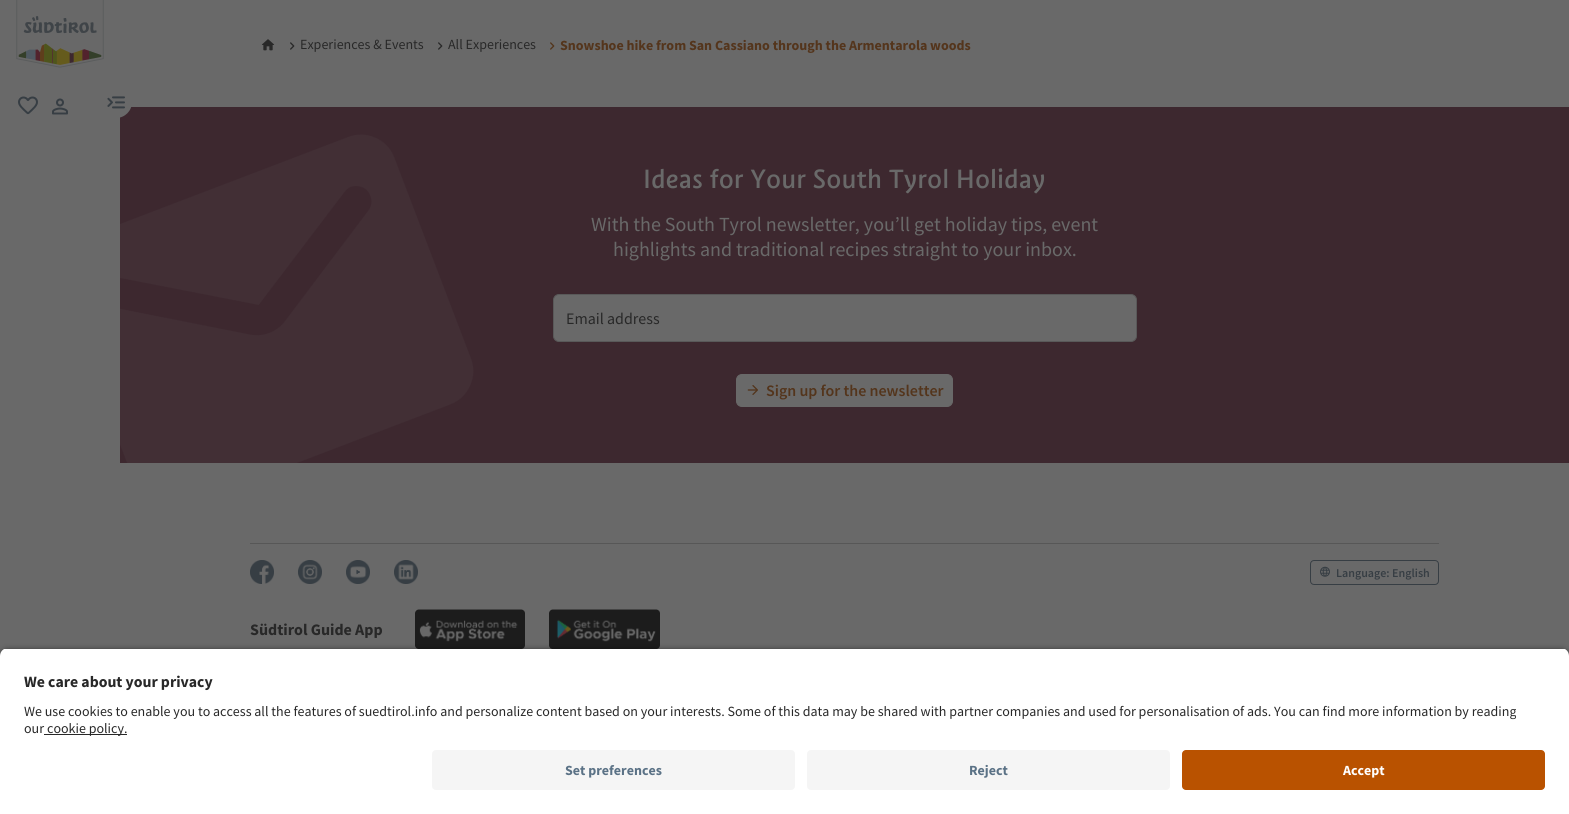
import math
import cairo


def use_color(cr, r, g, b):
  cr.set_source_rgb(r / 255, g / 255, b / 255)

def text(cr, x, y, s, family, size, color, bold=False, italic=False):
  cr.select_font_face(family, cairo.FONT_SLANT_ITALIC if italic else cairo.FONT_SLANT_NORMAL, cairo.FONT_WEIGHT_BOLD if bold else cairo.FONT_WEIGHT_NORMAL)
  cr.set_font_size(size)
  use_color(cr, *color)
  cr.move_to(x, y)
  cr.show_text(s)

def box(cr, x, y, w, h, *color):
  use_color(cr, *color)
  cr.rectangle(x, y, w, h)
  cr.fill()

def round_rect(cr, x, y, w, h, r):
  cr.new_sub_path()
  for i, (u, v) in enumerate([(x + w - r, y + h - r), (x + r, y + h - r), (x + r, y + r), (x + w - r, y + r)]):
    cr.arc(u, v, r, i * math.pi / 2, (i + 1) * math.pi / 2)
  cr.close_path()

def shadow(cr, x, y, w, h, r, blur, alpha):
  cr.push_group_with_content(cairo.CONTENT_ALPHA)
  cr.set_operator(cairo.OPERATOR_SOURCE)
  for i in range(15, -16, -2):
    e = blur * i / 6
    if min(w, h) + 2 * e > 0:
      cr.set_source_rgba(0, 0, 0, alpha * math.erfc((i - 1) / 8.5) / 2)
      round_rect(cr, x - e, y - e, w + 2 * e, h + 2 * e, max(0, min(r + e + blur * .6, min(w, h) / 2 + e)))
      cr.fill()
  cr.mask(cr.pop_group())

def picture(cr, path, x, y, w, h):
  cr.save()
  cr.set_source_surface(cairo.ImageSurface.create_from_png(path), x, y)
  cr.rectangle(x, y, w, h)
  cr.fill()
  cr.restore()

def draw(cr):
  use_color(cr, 105, 105, 105)
  cr.paint()
  picture(cr, "img_01.png", 16, 0, 88, 68)
  picture(cr, "img_02.png", 18, 96, 20, 19)
  picture(cr, "img_03.png", 52, 98, 16, 17)
  box(cr, 120, 107, 1449, 356, 61, 40, 47)
  use_color(cr, 105, 105, 105)
  round_rect(cr, 100, 85, 32, 33, 16)
  cr.fill()
  picture(cr, "img_04.png", 107, 96, 18, 13)
  picture(cr, "img_05.png", 261, 39, 14, 12)
  picture(cr, "img_06.png", 290, 42, 5, 8)
  picture(cr, "img_06.png", 438, 42, 5, 8)
  picture(cr, "img_07.png", 550, 42, 5, 8)
  picture(cr, "img_08.png", 120, 134, 354, 329)
  round_rect(cr, 553.5, 294.5, 583, 47, 5.5)
  cr.fill_preserve()
  use_color(cr, 89, 89, 89)
  cr.set_line_width(1)
  cr.stroke()
  use_color(cr, 105, 105, 105)
  round_rect(cr, 736.5, 374.5, 216, 32, 5.5)
  cr.fill_preserve()
  cr.stroke()
  picture(cr, "img_09.png", 747, 385, 11, 10)
  box(cr, 250, 543, 1189, 1, 87, 87, 87)
  picture(cr, "img_10.png", 250, 560, 24, 24)
  picture(cr, "img_11.png", 298, 560, 24, 24)
  picture(cr, "img_12.png", 346, 560, 24, 24)
  picture(cr, "img_13.png", 394, 560, 24, 24)
  round_rect(cr, 1310.5, 560.5, 128, 24, 3.5)
  use_color(cr, 55, 62, 68)
  cr.stroke()
  picture(cr, "img_14.png", 1320, 566, 10, 11)
  picture(cr, "img_15.png", 415, 609, 110, 40)
  picture(cr, "img_16.png", 549, 609, 111, 40)
  use_color(cr, 0, 0, 0)
  shadow(cr, 0, 651, 1569, 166, 8, 3.5, 0.8)
  cr.save()
  cr.new_path()
  cr.move_to(8, 648)
  cr.line_to(1561, 648)
  cr.curve_to(1565.5, 648, 1569, 651.5, 1569, 656)
  cr.line_to(1569, 742)
  cr.line_to(0, 742)
  cr.line_to(0, 656)
  cr.curve_to(0, 651.5, 3.5, 648, 8, 648)
  cr.close_path()
  cr.clip()
  box(cr, 0, 649, 1569, 93, 255, 255, 255)
  cr.restore()
  box(cr, 44, 734, 83, 1, 40, 40, 40)
  box(cr, 0, 742, 1569, 72, 255, 255, 255)
  use_color(cr, 245, 245, 245)
  round_rect(cr, 432, 750, 363, 40, 4)
  cr.fill()
  round_rect(cr, 807, 750, 363, 40, 4)
  cr.fill()
  use_color(cr, 185, 82, 0)
  round_rect(cr, 1182, 750, 363, 40, 4)
  cr.fill()
  text(cr, 300, 49, "Experiences & Events", "Source Sans Pro", 14, (40, 40, 40))
  text(cr, 448, 49, "All Experiences", "Source Sans Pro", 14, (40, 40, 40))
  text(cr, 560, 50, "Snowshoe hike from San Cassiano through the Armentarola woods", "Source Sans Pro", 14, (84, 53, 28), bold=True)
  text(cr, 643, 188, "Ideas for Your South Tyrol Holiday", "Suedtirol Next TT", 28, (105, 105, 105))
  text(cr, 591, 231, "With the South Tyrol newsletter, you’ll get holiday tips, event", "Source Sans Pro", 20, (105, 105, 105))
  text(cr, 613, 256, "highlights and traditional recipes straight to your inbox.", "Source Sans Pro", 20, (105, 105, 105))
  text(cr, 566, 324, "Email address", "Source Sans Pro", 16, (40, 40, 40))
  text(cr, 766, 396, "Sign up for the newsletter", "Source Sans Pro SemiBold", 16, (84, 53, 28))
  text(cr, 1336, 577, "Language: English", "Source Sans Pro SemiBold", 12, (55, 62, 68))
  text(cr, 250, 635, "Südtirol Guide App", "Source Sans Pro", 16, (40, 40, 40), bold=True)
  text(cr, 24, 687, "We care about your privacy", "Source Sans Pro", 15.75, (40, 40, 40), bold=True)
  text(cr, 24, 716, "We use cookies to enable you to access all the features of suedtirol.info and personalize content based on your interests. Some of this data may be shared with partner companies and used for personalisation of ads. You can find more information by reading", "Source Sans Pro", 14, (40, 40, 40))
  text(cr, 24, 733, "our", "Source Sans Pro", 14, (40, 40, 40))
  text(cr, 47, 733, "cookie policy.", "Source Sans Pro", 14, (40, 40, 40))
  text(cr, 565, 775, "Set preferences", "Source Sans Pro", 14, (91, 114, 134), bold=True)
  text(cr, 969, 775, "Reject", "Source Sans Pro", 14, (91, 114, 134), bold=True)
  text(cr, 1343, 775, "Accept", "Source Sans Pro", 14, (255, 255, 255), bold=True)


surface = cairo.ImageSurface(cairo.FORMAT_RGB24, 1569, 814)
cr = cairo.Context(surface)
options = cairo.FontOptions()
options.set_hint_metrics(cairo.HINT_METRICS_OFF)
options.set_hint_style(cairo.HINT_STYLE_NONE)
cr.set_font_options(options)
cr.set_miter_limit(4)
draw(cr)
surface.write_to_png("out.png")
